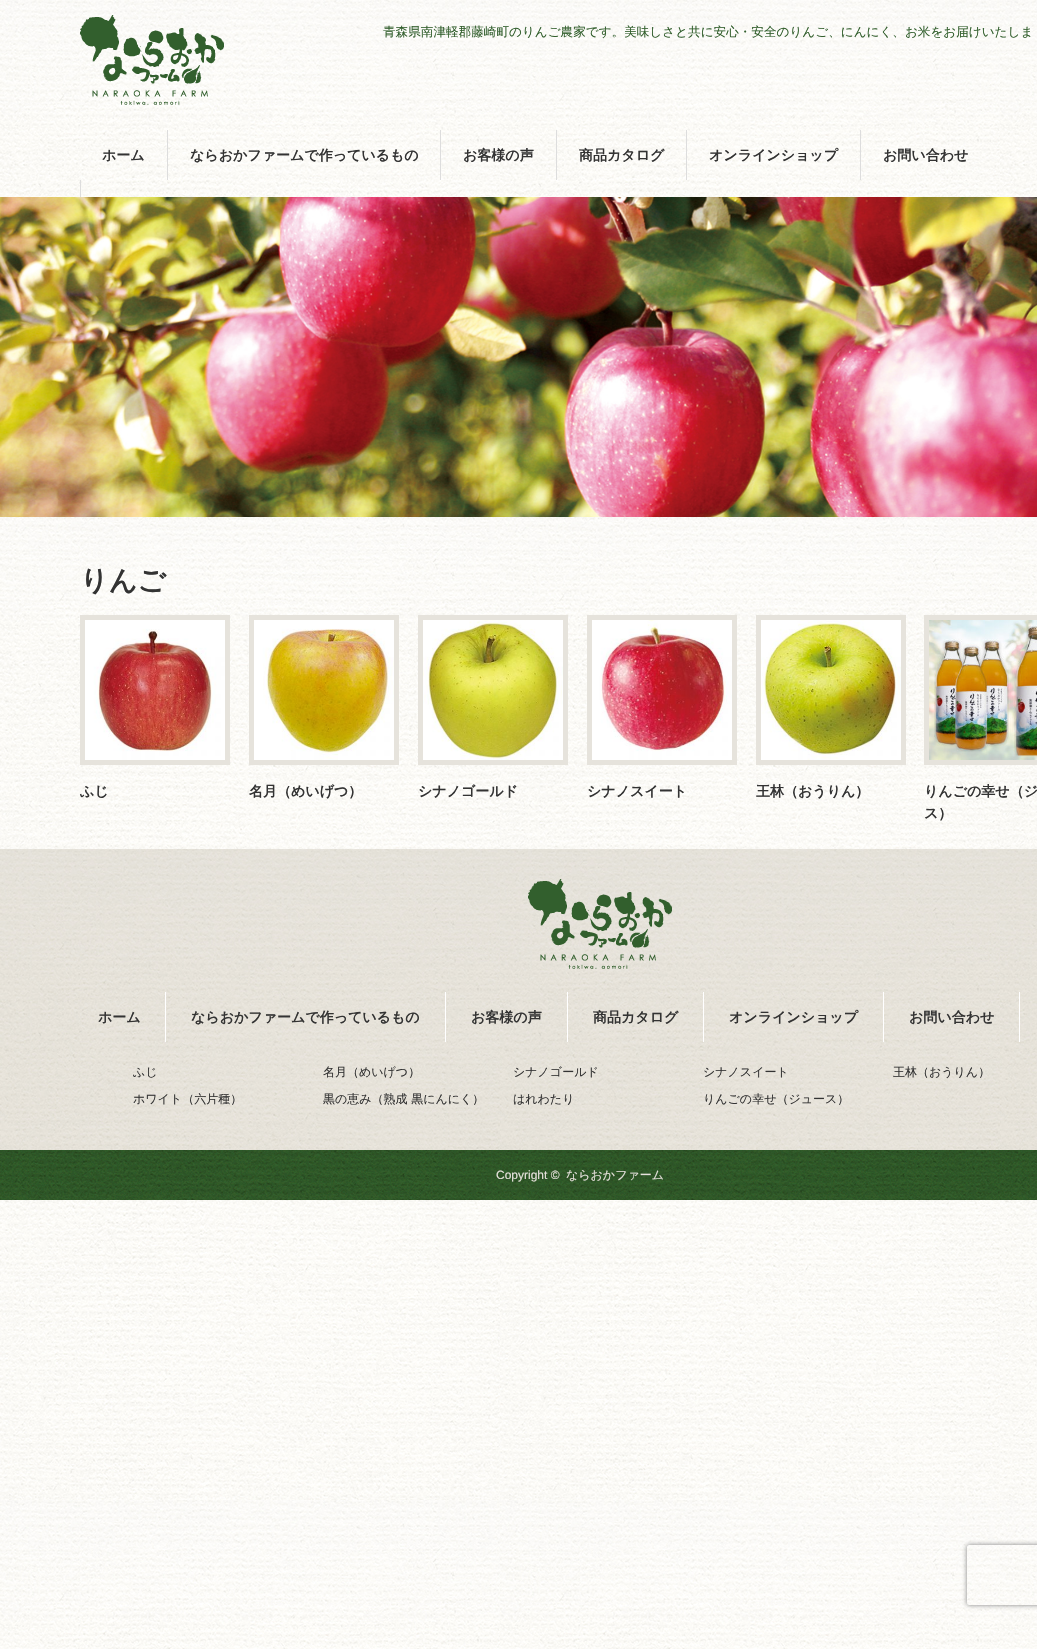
void draw(SkCanvas* canvas) {
  SkPaint paint;
  paint.setAntiAlias(true);
  auto face = [&](const char* family, int weight, float size, bool italic = false) {
    SkFontStyle style(weight, SkFontStyle::kNormal_Width,
      italic ? SkFontStyle::kItalic_Slant : SkFontStyle::kUpright_Slant);
    SkFont result(fontMgr->matchFamilyStyle(family, style), size);
    result.setSubpixel(true);
    return result;
  };
  auto paste = [&](const char* path, float x, float y, float w, float h) {
    auto image = SkImages::DeferredFromEncodedData(SkData::MakeFromFileName(path));
    canvas->drawImageRect(image, SkRect::MakeXYWH(x, y, w, h), SkSamplingOptions());
  };
  auto shape = [&](const char* data, bool evenOdd = false) {
    SkPath result = *SkParsePath::FromSVGString(data);
    if (evenOdd) result.setFillType(SkPathFillType::kEvenOdd);
    return result;
  };
  canvas->clear(0xffffffff);
  paste("img/1.png", 0, 0, 1037, 1649);
  paste("img/2.png", 80, 15, 144, 90);
  {
    const struct { float x, y, w, h; SkColor color; } items[] = {
      {167, 130, 1, 50, 0xffdddddd},
      {440, 130, 1, 50, 0xffdddddd},
      {556, 130, 1, 50, 0xffdddddd},
      {686, 130, 1, 50, 0xffdddddd},
      {860, 130, 1, 50, 0xffdddddd},
      {80, 180, 1, 17, 0xffdddddd},
    };
    for (auto [x, y, w, h, color] : items) {
      paint.setColor(color);
      canvas->drawRect(SkRect::MakeXYWH(x, y, w, h), paint);
    }
  }
  paste("img/3.png", 0, 197, 1037, 320);
  paint.setStroke(true);
  paint.setStrokeWidth(5);
  paint.setColor(0xffe6e3dc);
  canvas->drawRect(SkRect::MakeXYWH(82.5f, 617.5f, 145, 145), paint);
  paste("img/4.png", 85, 620, 140, 140);
  canvas->drawRect(SkRect::MakeXYWH(251.5f, 617.5f, 145, 145), paint);
  paste("img/5.png", 254, 620, 140, 140);
  canvas->drawRect(SkRect::MakeXYWH(420.5f, 617.5f, 145, 145), paint);
  paste("img/6.png", 423, 620, 140, 140);
  canvas->drawRect(SkRect::MakeXYWH(589.5f, 617.5f, 145, 145), paint);
  paste("img/7.png", 592, 620, 140, 140);
  canvas->drawRect(SkRect::MakeXYWH(758.5f, 617.5f, 145, 145), paint);
  paste("img/8.png", 761, 620, 140, 140);
  canvas->drawRect(SkRect::MakeXYWH(926.5f, 617.5f, 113, 145), paint);
  paste("img/9.png", 929, 620, 108, 140);
  paste("img/10.png", 0, 849, 1037, 301);
  paste("img/11.png", 528, 879, 144, 90);
  paint.setStroke(false);
  {
    const struct { float x, y, w, h; SkColor color; } items[] = {
      {165, 992, 1, 50, 0xffffffff},
      {445, 992, 1, 50, 0xffffffff},
      {567, 992, 1, 50, 0xffffffff},
      {703, 992, 1, 50, 0xffffffff},
      {883, 992, 1, 50, 0xffffffff},
      {1019, 992, 1, 50, 0xffffffff},
    };
    for (auto [x, y, w, h, color] : items) {
      paint.setColor(color);
      canvas->drawRect(SkRect::MakeXYWH(x, y, w, h), paint);
    }
  }
  paste("img/12.png", 0, 1150, 1037, 50);
  canvas->save();
  canvas->clipPath(shape("M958 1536H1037V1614H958ZM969 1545H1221C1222 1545 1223 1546 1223 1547V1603C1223 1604 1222 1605 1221 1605H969C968 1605 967 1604 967 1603V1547C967 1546 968 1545 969 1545Z", true), true);
  paint.setColor(0xff808080);
  paint.setMaskFilter(SkMaskFilter::MakeBlur(kNormal_SkBlurStyle, 2.5f));
  canvas->drawRoundRect(SkRect::MakeXYWH(967, 1545, 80, 60), 2, 2, paint);
  paint.setMaskFilter(nullptr);
  canvas->restore();
  auto f0 = face("WenQuanYi Zen Hei", 500, 12.6f);
  paint.setColor(0xff325f2d);
  canvas->drawString("青森県南津軽郡藤崎町のりんご農家です。美味しさと共に安心・安全のりんご、にんにく、お米をお届けいたしま", 383, 36, f0, paint);
  auto f1 = face("WenQuanYi Zen Hei", 700, 14);
  paint.setColor(0xff333333);
  {
    const struct { const char* s; float x, y; } items[] = {
      {"ホーム", 102, 160},
      {"ならおかファームで作っているもの", 190, 160},
      {"お客様の声", 463, 160},
      {"商品カタログ", 579, 160},
      {"オンラインショップ", 709, 160},
      {"お問い合わせ", 883, 160},
    };
    for (auto [s, x, y] : items) {
      canvas->drawString(s, x, y, f1, paint);
    }
  }
  auto f2 = face("WenQuanYi Zen Hei", 700, 28);
  canvas->drawString("りんご", 80, 590, f2, paint);
  {
    const struct { const char* s; float x, y; } items[] = {
      {"ふじ", 80, 796},
      {"名月（めいげつ）", 249, 796},
      {"シナノゴールド", 418, 796},
      {"シナノスイート", 587, 796},
      {"王林（おうりん）", 756, 796},
      {"りんごの幸せ（ジ", 924, 796},
      {"ス）", 924, 818},
      {"ホーム", 98, 1022},
      {"ならおかファームで作っているもの", 191, 1022},
      {"お客様の声", 471, 1022},
      {"商品カタログ", 593, 1022},
      {"オンラインショップ", 729, 1022},
      {"お問い合わせ", 909, 1022},
    };
    for (auto [s, x, y] : items) {
      canvas->drawString(s, x, y, f1, paint);
    }
  }
  auto f3 = face("WenQuanYi Zen Hei", 500, 12);
  {
    const struct { const char* s; float x, y; } items[] = {
      {"ふじ", 133, 1076},
      {"名月（めいげつ）", 323, 1076},
      {"シナノゴールド", 513, 1076},
      {"シナノスイート", 703, 1076},
      {"王林（おうりん）", 893, 1076},
      {"ホワイト（六片種）", 133, 1103},
      {"黒の恵み（熟成 黒にんにく）", 323, 1103},
      {"はれわたり", 513, 1103},
      {"りんごの幸せ（ジュース）", 703, 1103},
    };
    for (auto [s, x, y] : items) {
      canvas->drawString(s, x, y, f3, paint);
    }
  }
  auto f4 = face("Liberation Sans", 400, 12);
  paint.setColor(0xffe6e1dc);
  canvas->drawString("Copyright ©", 496, 1179, f4, paint);
  canvas->drawString("ならおかファーム", 566, 1179, f3, paint);
}
